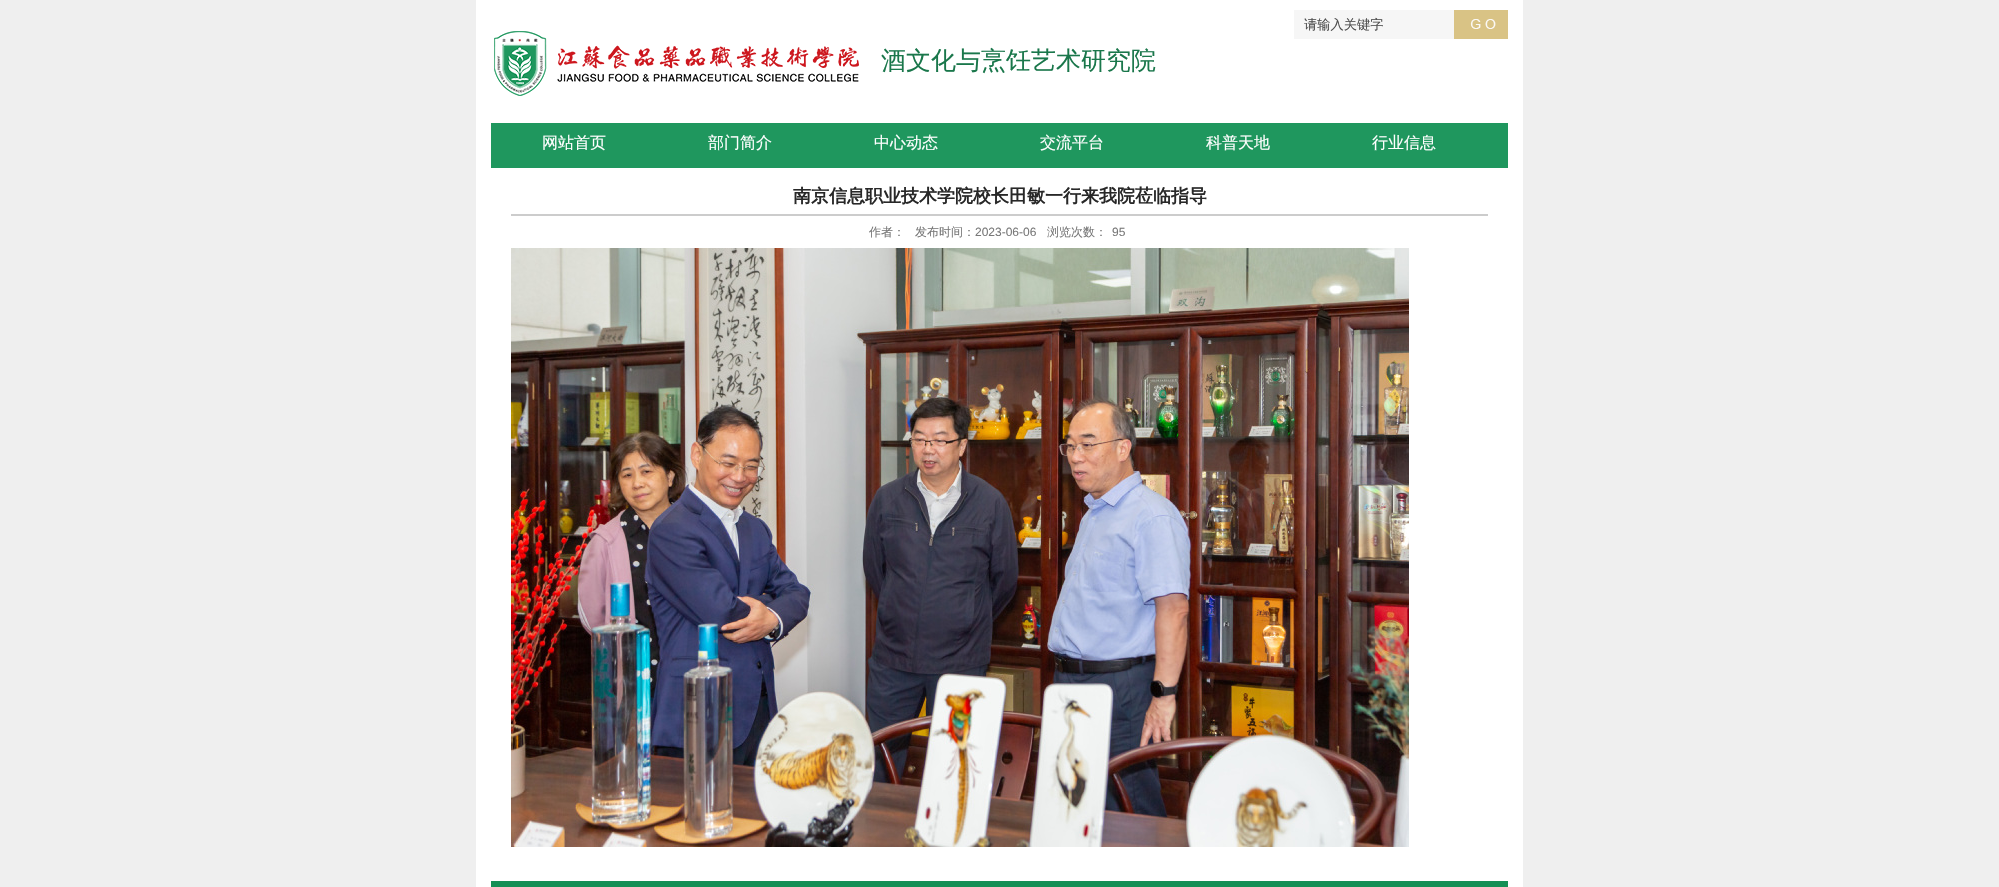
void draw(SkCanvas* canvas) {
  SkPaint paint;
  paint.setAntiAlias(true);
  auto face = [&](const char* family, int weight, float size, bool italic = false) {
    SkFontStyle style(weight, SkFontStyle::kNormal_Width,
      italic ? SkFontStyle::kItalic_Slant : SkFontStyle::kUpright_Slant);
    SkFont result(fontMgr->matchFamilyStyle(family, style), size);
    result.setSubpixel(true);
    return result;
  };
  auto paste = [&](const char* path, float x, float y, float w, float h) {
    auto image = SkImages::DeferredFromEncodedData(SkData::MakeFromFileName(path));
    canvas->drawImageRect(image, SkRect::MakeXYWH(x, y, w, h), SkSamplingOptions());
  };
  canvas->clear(0xffefefef);
  paint.setColor(0xffffffff);
  canvas->drawRect(SkRect::MakeXYWH(476, 0, 1047, 887), paint);
  paint.setColor(0xfff6f6f6);
  canvas->drawRect(SkRect::MakeXYWH(1294, 10, 160, 29), paint);
  paste("img/1.png", 1454, 10, 54, 29);
  paste("img/2.png", 494, 31, 365, 65);
  paint.setColor(0xff1f975e);
  canvas->drawRect(SkRect::MakeXYWH(491, 123, 1017, 45), paint);
  paint.setColor(0xffcccccc);
  canvas->drawRect(SkRect::MakeXYWH(511, 214, 977, 2), paint);
  paste("img/3.png", 511, 248, 898, 599);
  paint.setColor(0xff148f55);
  canvas->drawRect(SkRect::MakeXYWH(491, 881, 1017, 6), paint);
  auto f0 = face("WenQuanYi Zen Hei", 500, 13.25f);
  paint.setColor(0xff4e4e4e);
  canvas->drawString("请输入关键字", 1304, 29, f0, paint);
  auto f1 = face("WenQuanYi Zen Hei", 500, 25);
  paint.setColor(0xff1a774b);
  canvas->drawString("酒文化与烹饪艺术研究院", 881, 69, f1, paint);
  auto f2 = face("WenQuanYi Zen Hei", 500, 16);
  paint.setColor(0xffffffff);
  {
    const struct { const char* s; float x, y; } items[] = {
      {"网站首页", 542, 148},
      {"部门简介", 708, 148},
      {"中心动态", 874, 148},
      {"交流平台", 1040, 148},
      {"科普天地", 1206, 148},
      {"行业信息", 1372, 148},
    };
    for (auto [s, x, y] : items) {
      canvas->drawString(s, x, y, f2, paint);
    }
  }
  auto f3 = face("WenQuanYi Zen Hei", 700, 18);
  paint.setColor(0xff282828);
  canvas->drawString("南京信息职业技术学院校长田敏一行来我院莅临指导", 793, 202, f3, paint);
  auto f4 = face("WenQuanYi Zen Hei", 500, 12);
  paint.setColor(0xff787878);
  canvas->drawString("作者：", 869, 236, f4, paint);
  canvas->drawString("发布时间：", 915, 236, f4, paint);
  auto f5 = face("Liberation Sans", 400, 12);
  canvas->drawString("2023-06-06", 975, 236, f5, paint);
  canvas->drawString("浏览次数：", 1047, 236, f4, paint);
  canvas->drawString("95", 1112, 236, f5, paint);
}
